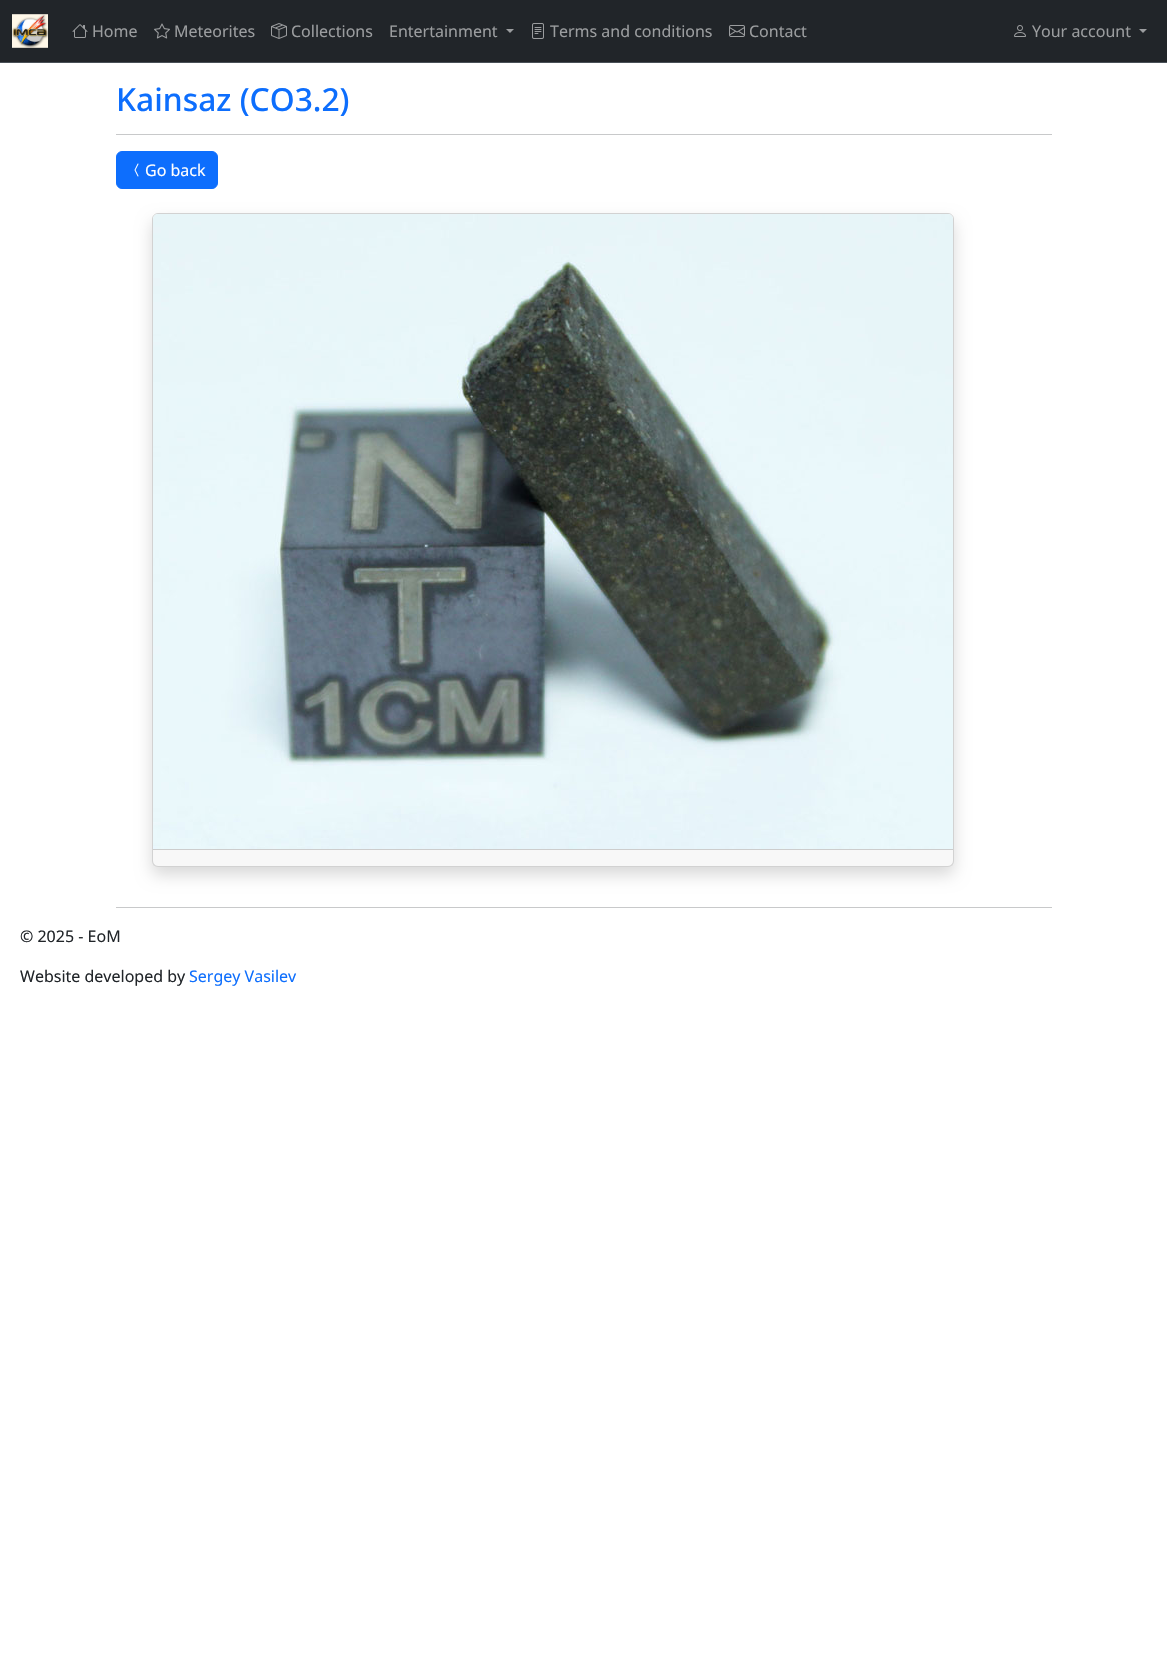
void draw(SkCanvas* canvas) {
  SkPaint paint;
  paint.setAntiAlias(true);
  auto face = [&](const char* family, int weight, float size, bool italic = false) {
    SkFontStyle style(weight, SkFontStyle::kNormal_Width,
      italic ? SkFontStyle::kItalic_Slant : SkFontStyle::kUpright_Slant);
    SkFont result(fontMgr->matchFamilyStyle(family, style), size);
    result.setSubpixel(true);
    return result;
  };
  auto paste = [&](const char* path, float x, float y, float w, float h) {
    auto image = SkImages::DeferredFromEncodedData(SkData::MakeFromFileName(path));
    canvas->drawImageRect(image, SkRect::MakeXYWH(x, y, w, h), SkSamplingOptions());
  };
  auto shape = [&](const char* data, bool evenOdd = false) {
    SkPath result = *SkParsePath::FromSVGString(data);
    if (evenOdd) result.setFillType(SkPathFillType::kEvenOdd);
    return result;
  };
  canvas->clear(0xffffffff);
  paint.setColor(0xff212529);
  canvas->drawRect(SkRect::MakeXYWH(0, 0, 1167, 62), paint);
  paint.setColor(0xff495057);
  canvas->drawRect(SkRect::MakeXYWH(0, 62, 1167, 1), paint);
  paste("img/1.png", 12, 14, 36, 34);
  paste("img/2.png", 72, 24, 16, 14);
  paste("img/3.png", 154, 23, 16, 16);
  paste("img/4.png", 271, 23, 16, 16);
  paint.setColor(0xff9b9d9f);
  canvas->drawPath(shape("M506 29H514L510 33Z"), paint);
  paste("img/5.png", 532, 23, 12, 16);
  paste("img/6.png", 729, 25, 16, 12);
  paste("img/7.png", 1014, 25, 12, 12);
  canvas->drawPath(shape("M1139 29H1147L1143 33Z"), paint);
  paint.setColor(0xffc8c9ca);
  canvas->drawRect(SkRect::MakeXYWH(116, 134, 936, 1), paint);
  paint.setColor(0xff0d6efd);
  canvas->drawRoundRect(SkRect::MakeXYWH(116.5f, 151.5f, 101, 37), 5.5f, 5.5f, paint);
  paint.setStroke(true);
  paint.setStrokeWidth(1);
  canvas->drawRoundRect(SkRect::MakeXYWH(116.5f, 151.5f, 101, 37), 5.5f, 5.5f, paint);
  paste("img/8.png", 134, 163, 5, 14);
  paint.setStroke(false);
  paint.setColor(0x26000000);
  paint.setMaskFilter(SkMaskFilter::MakeBlur(kNormal_SkBlurStyle, 8));
  canvas->drawRoundRect(SkRect::MakeXYWH(152, 221, 802, 654), 6, 6, paint);
  paint.setMaskFilter(nullptr);
  paint.setColor(0xffffffff);
  canvas->drawRoundRect(SkRect::MakeXYWH(152.5f, 213.5f, 801, 653), 5.5f, 5.5f, paint);
  paint.setStroke(true);
  paint.setColor(0xffd2d2d2);
  canvas->drawRoundRect(SkRect::MakeXYWH(152.5f, 213.5f, 801, 653), 5.5f, 5.5f, paint);
  paste("img/9.png", 153, 214, 800, 635);
  paint.setStroke(false);
  {
    const struct { float x, y, w, h; SkColor color; } items[] = {
      {153, 850, 800, 16, 0x08212529},
      {153, 849, 800, 1, 0xffcdcdcd},
      {116, 907, 936, 1, 0xffc8c9ca},
    };
    for (auto [x, y, w, h, color] : items) {
      paint.setColor(color);
      canvas->drawRect(SkRect::MakeXYWH(x, y, w, h), paint);
    }
  }
  auto f0 = face("Noto Sans", 400, 16);
  paint.setColor(0xff9b9d9f);
  {
    const struct { const char* s; float x, y; } items[] = {
      {"Home", 92, 37},
      {"Meteorites", 174, 37},
      {"Collections", 291, 37},
      {"Entertainment", 389, 37},
      {"Terms and conditions", 550, 37},
      {"Contact", 749, 37},
      {"Your account", 1032, 37},
    };
    for (auto [s, x, y] : items) {
      canvas->drawString(s, x, y, f0, paint);
    }
  }
  auto f1 = face("Noto Sans", 500, 31.75f);
  paint.setColor(0xff0d6efd);
  canvas->drawString("Kainsaz (CO3.2)", 116, 111, f1, paint);
  paint.setColor(0xffffffff);
  canvas->drawString("Go back", 145, 176, f0, paint);
  paint.setColor(0xff212529);
  canvas->drawString("© 2025 - EoM", 20, 942, f0, paint);
  canvas->drawString("Website developed by", 20, 982, f0, paint);
  paint.setColor(0xff0d6efd);
  canvas->drawString("Sergey Vasilev", 189, 982, f0, paint);
}
